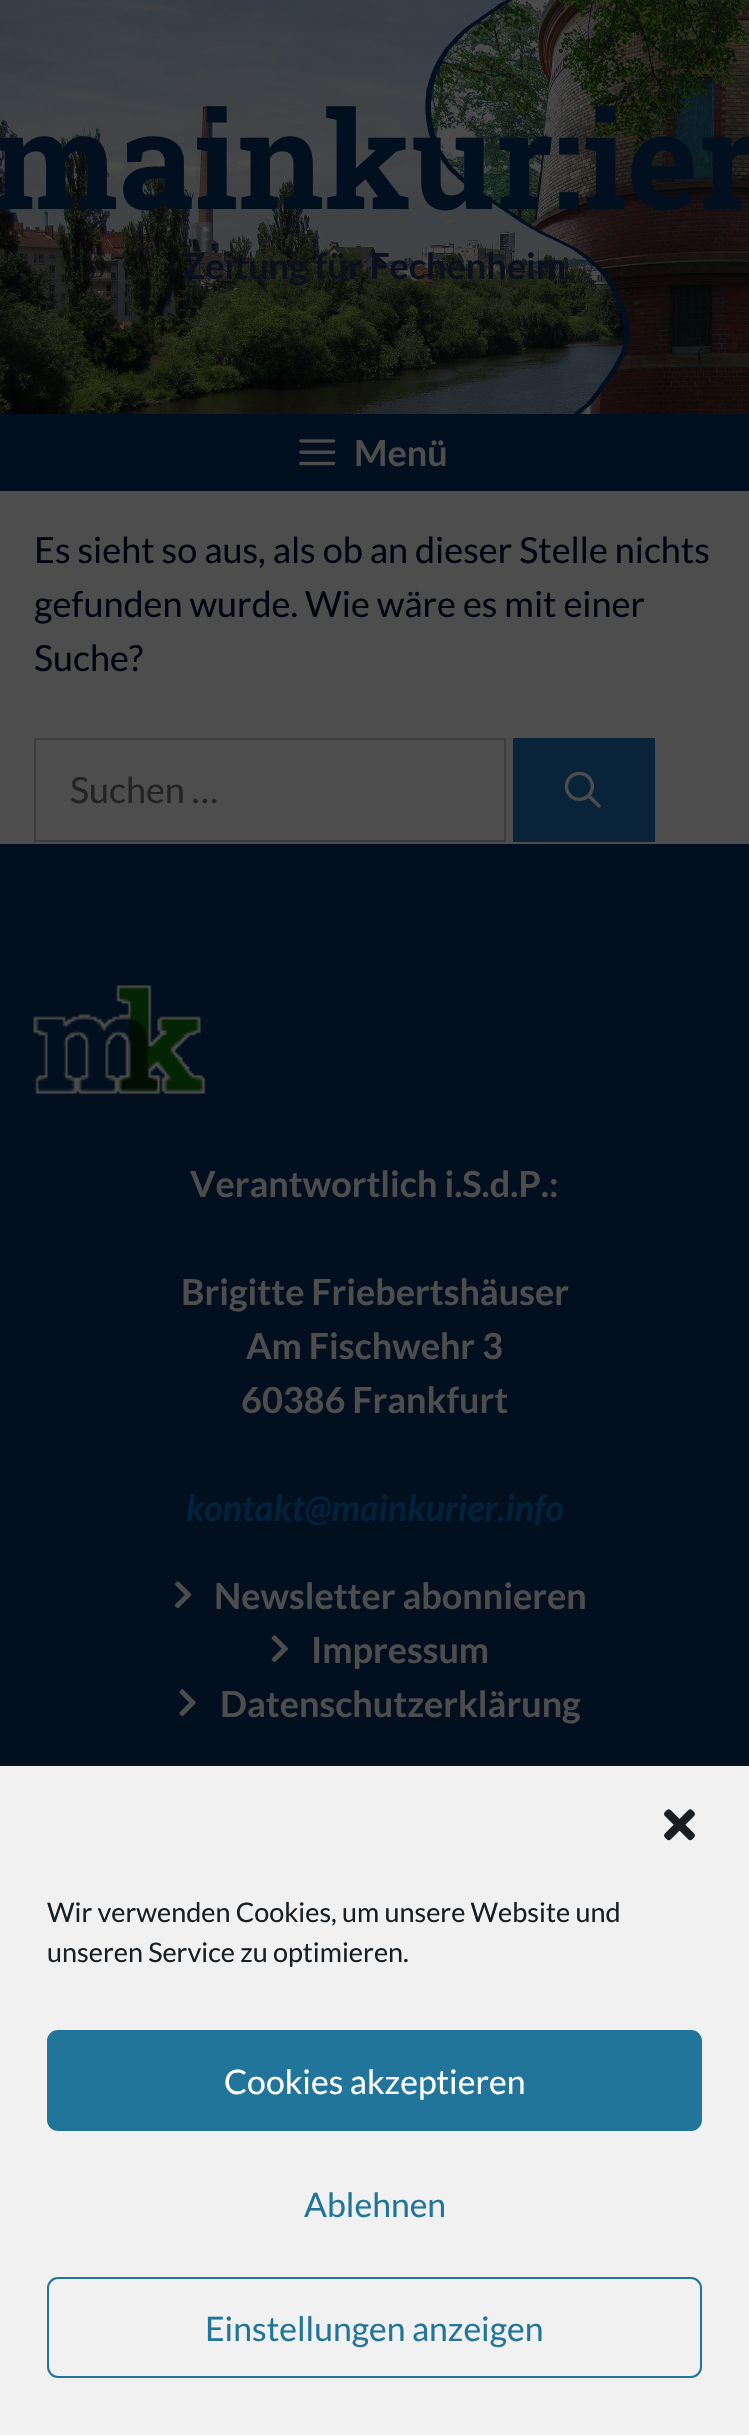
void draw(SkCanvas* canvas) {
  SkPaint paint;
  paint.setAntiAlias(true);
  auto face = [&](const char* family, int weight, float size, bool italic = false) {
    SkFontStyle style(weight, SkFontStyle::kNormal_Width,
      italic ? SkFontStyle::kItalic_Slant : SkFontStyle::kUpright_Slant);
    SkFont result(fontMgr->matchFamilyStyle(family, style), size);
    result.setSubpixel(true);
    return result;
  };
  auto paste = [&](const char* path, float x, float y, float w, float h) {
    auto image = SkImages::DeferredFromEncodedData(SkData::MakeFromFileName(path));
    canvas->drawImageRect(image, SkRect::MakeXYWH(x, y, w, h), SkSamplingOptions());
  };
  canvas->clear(0xff020f1e);
  paste("img/1.png", 0, 0, 749, 414);
  paste("img/2.png", 299, 439, 37, 27);
  paint.setColor(0xff4d4d4d);
  canvas->drawRect(SkRect::MakeXYWH(0, 491, 749, 353), paint);
  paint.setStroke(true);
  paint.setStrokeWidth(2);
  paint.setColor(0xff3d3d3d);
  canvas->drawRect(SkRect::MakeXYWH(35, 739, 470, 102), paint);
  paint.setStroke(false);
  paint.setColor(0xff092339);
  canvas->drawRect(SkRect::MakeXYWH(513, 738, 142, 104), paint);
  paste("img/3.png", 564, 771, 37, 37);
  paste("img/4.png", 33, 985, 173, 110);
  paste("img/5.png", 175, 1581, 17, 28);
  paste("img/6.png", 271, 1635, 17, 28);
  paste("img/7.png", 179, 1689, 17, 28);
  paint.setColor(0xfff1f1f1);
  canvas->drawRect(SkRect::MakeXYWH(0, 1766, 749, 669), paint);
  paste("img/8.png", 664, 1809, 31, 32);
  paint.setColor(0xff21759b);
  canvas->drawRoundRect(SkRect::MakeXYWH(48, 2031, 653, 99), 10, 10, paint);
  paint.setStroke(true);
  canvas->drawRoundRect(SkRect::MakeXYWH(48, 2031, 653, 99), 10, 10, paint);
  canvas->drawRoundRect(SkRect::MakeXYWH(48, 2278, 653, 99), 10, 10, paint);
  auto f0 = face("Roboto Slab", 700, 135);
  paint.setStroke(false);
  paint.setColor(0xff020f1e);
  canvas->drawString("mainkur:ier", -8, 209, f0, paint);
  auto f1 = face("Lato", 700, 36);
  paint.setColor(0xff0b101f);
  canvas->drawString("Zeitung für Fechenheim", 183, 279, f1, paint);
  paint.setColor(0xff4d4d4d);
  canvas->drawString("Menü", 354, 466, f1, paint);
  auto f2 = face("Lato", 400, 36);
  paint.setColor(0xff020411);
  {
    const struct { const char* s; float x, y; } items[] = {
      {"Es sieht so aus, als ob an dieser Stelle nichts", 34, 563},
      {"gefunden wurde. Wie wäre es mit einer", 34, 617},
      {"Suche?", 34, 671},
    };
    for (auto [s, x, y] : items) {
      canvas->drawString(s, x, y, f2, paint);
    }
  }
  paint.setColor(0xff232323);
  canvas->drawString("Suchen …", 70, 803, f2, paint);
  paint.setColor(0xff4d4d4d);
  {
    const struct { const char* s; float x, y; } items[] = {
      {"Verantwortlich i.S.d.P.:", 190, 1197},
      {"Brigitte Friebertshäuser", 181, 1305},
      {"Am Fischwehr 3", 246, 1359},
      {"60386 Frankfurt", 241, 1413},
    };
    for (auto [s, x, y] : items) {
      canvas->drawString(s, x, y, f1, paint);
    }
  }
  auto f3 = face("Lato", 700, 36, true);
  paint.setColor(0xff00223a);
  canvas->drawString("kontakt@mainkurier.info", 186, 1521, f3, paint);
  paint.setColor(0xff4d4d4d);
  {
    const struct { const char* s; float x, y; } items[] = {
      {"Newsletter abonnieren", 214, 1609},
      {"Impressum", 311, 1663},
      {"Datenschutzerklärung", 220, 1717},
    };
    for (auto [s, x, y] : items) {
      canvas->drawString(s, x, y, f1, paint);
    }
  }
  auto f4 = face("Lato", 400, 27);
  paint.setColor(0xff191e23);
  canvas->drawString("Wir verwenden Cookies, um unsere Website und", 47, 1922, f4, paint);
  canvas->drawString("unseren Service zu optimieren.", 47, 1962, f4, paint);
  auto f5 = face("Lato", 400, 33.75f);
  paint.setColor(0xffffffff);
  canvas->drawString("Cookies akzeptieren", 224, 2094, f5, paint);
  paint.setColor(0xff21759b);
  canvas->drawString("Ablehnen", 304, 2217, f5, paint);
  canvas->drawString("Einstellungen anzeigen", 205, 2341, f5, paint);
}
